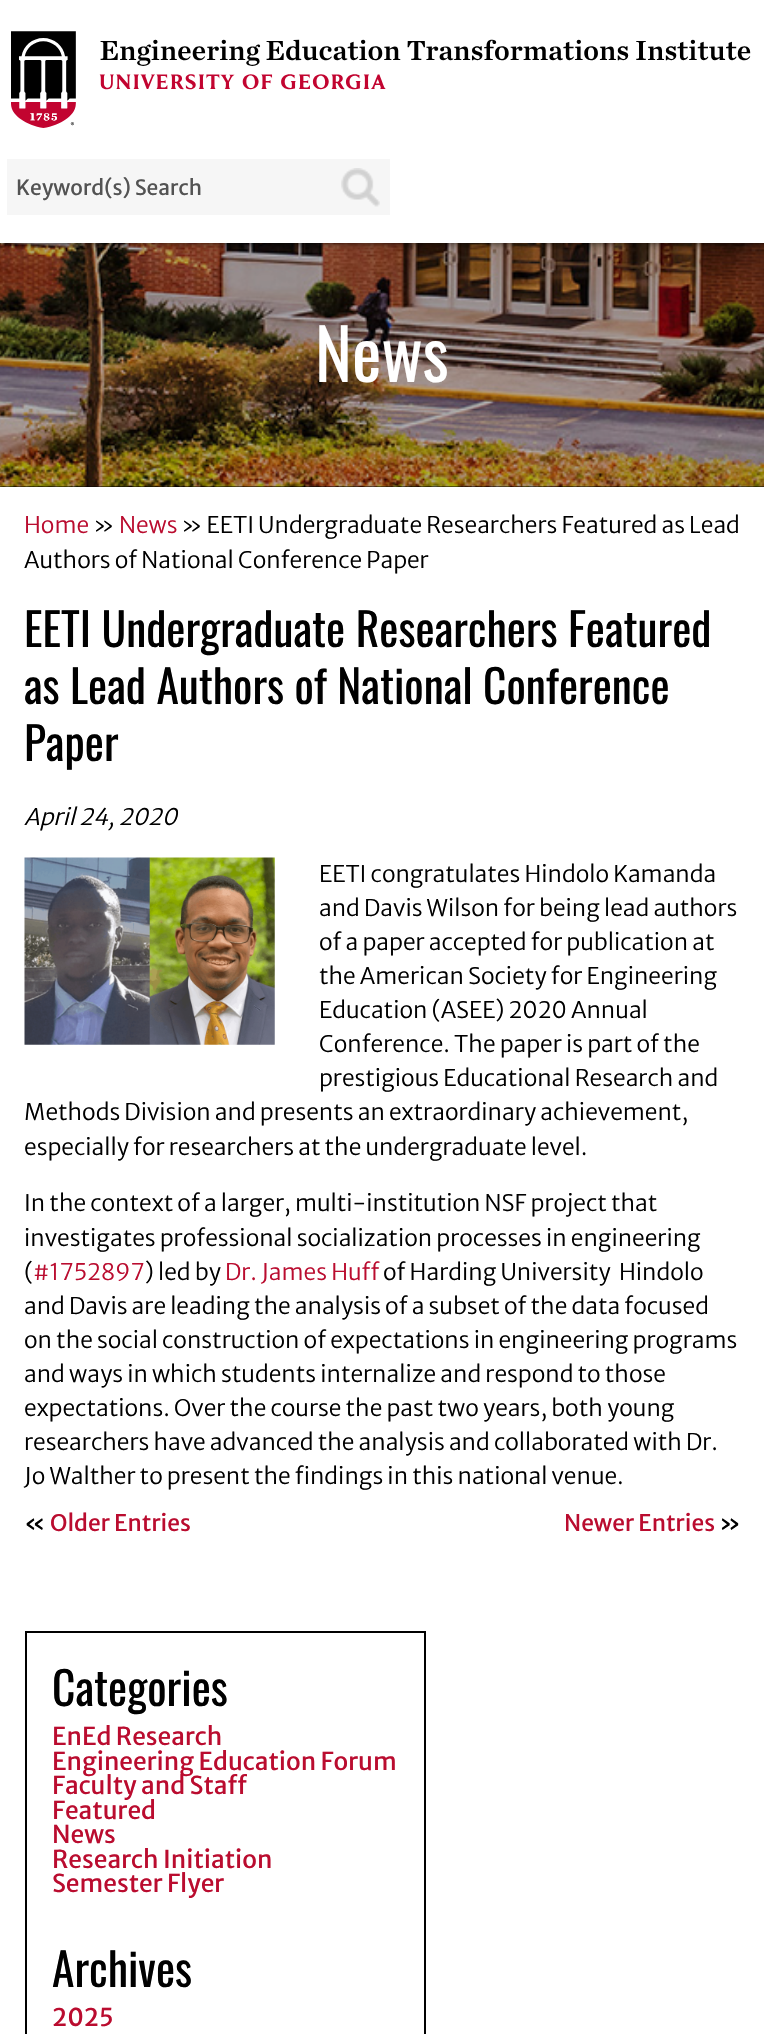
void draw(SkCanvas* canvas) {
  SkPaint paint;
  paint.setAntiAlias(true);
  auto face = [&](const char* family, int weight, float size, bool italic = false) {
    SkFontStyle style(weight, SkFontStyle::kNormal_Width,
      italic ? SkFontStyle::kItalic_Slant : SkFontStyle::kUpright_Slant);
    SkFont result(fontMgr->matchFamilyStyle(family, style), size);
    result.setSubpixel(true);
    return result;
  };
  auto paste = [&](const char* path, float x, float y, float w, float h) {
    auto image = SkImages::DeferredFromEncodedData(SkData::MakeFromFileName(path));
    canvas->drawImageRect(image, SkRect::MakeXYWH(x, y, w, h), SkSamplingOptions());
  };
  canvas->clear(0xffffffff);
  paint.setColor(0xff000000);
  canvas->drawRect(SkRect::MakeXYWH(0, 486, 764, 1), paint);
  paste("img/3.png", 0, 243, 764, 244);
  paint.setColor(0xb3000000);
  paint.setMaskFilter(SkMaskFilter::MakeBlur(kNormal_SkBlurStyle, 3.5f));
  canvas->drawRect(SkRect::MakeXYWH(0, 0, 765, 243), paint);
  paint.setMaskFilter(nullptr);
  paint.setColor(0xffffffff);
  canvas->drawRect(SkRect::MakeXYWH(0, 0, 764, 243), paint);
  paste("img/1.png", 11, 31, 740, 97);
  paint.setColor(0xfff6f6f6);
  canvas->drawRect(SkRect::MakeXYWH(7, 159, 383, 56), paint);
  paste("img/2.png", 341, 168, 39, 39);
  paste("img/4.png", 24, 857, 251, 188);
  {
    const struct { float x, y, w, h; SkColor color; } items[] = {
      {25, 1631, 400, 2, 0xff000000},
      {424, 1631, 2, 403, 0xff000000},
      {25, 1631, 2, 403, 0xff000000},
    };
    for (auto [x, y, w, h, color] : items) {
      paint.setColor(color);
      canvas->drawRect(SkRect::MakeXYWH(x, y, w, h), paint);
    }
  }
  auto f0 = face("Merriweather Sans", 400, 21);
  paint.setColor(0xff535353);
  canvas->drawString("Keyword(s) Search", 16, 195, f0, paint);
  auto f1 = face("Oswald", 400, 70);
  paint.setColor(0xffffffff);
  canvas->drawString("News", 315, 382, f1, paint);
  auto f2 = face("Merriweather Sans", 300, 22.75f);
  paint.setColor(0xffba0c2f);
  canvas->drawString("Home", 24, 533, f2, paint);
  paint.setColor(0xff000000);
  canvas->drawString("»", 93, 533, f2, paint);
  paint.setColor(0xffba0c2f);
  canvas->drawString("News", 119, 533, f2, paint);
  paint.setColor(0xff000000);
  canvas->drawString("» EETI Undergraduate Researchers Featured as Lead", 181, 533, f2, paint);
  canvas->drawString("Authors of National Conference Paper", 24, 568, f2, paint);
  auto f3 = face("Oswald", 400, 45.5f);
  {
    const struct { const char* s; float x, y; } items[] = {
      {"EETI Undergraduate Researchers Featured", 24, 647},
      {"as Lead Authors of National Conference", 24, 704},
      {"Paper", 24, 761},
    };
    for (auto [s, x, y] : items) {
      canvas->drawString(s, x, y, f3, paint);
    }
  }
  auto f4 = face("Merriweather Sans", 300, 22.75f, true);
  canvas->drawString("April 24, 2020", 24, 825, f4, paint);
  {
    const struct { const char* s; float x, y; } items[] = {
      {"EETI congratulates Hindolo Kamanda", 319, 882},
      {"and Davis Wilson for being lead authors", 319, 916},
      {"of a paper accepted for publication at", 319, 950},
      {"the American Society for Engineering", 319, 984},
      {"Education (ASEE) 2020 Annual", 319, 1018},
      {"Conference. The paper is part of the", 319, 1052},
      {"prestigious Educational Research and", 319, 1086},
      {"Methods Division and presents an extraordinary achievement,", 24, 1120},
      {"especially for researchers at the undergraduate level.", 24, 1155},
      {"In the context of a larger, multi-institution NSF project that", 24, 1211},
      {"investigates professional socialization processes in engineering", 24, 1246},
      {"(", 24, 1280},
    };
    for (auto [s, x, y] : items) {
      canvas->drawString(s, x, y, f2, paint);
    }
  }
  paint.setColor(0xffba0c2f);
  canvas->drawString("#1752897", 33, 1280, f2, paint);
  paint.setColor(0xff000000);
  canvas->drawString(") led by", 145, 1280, f2, paint);
  paint.setColor(0xffba0c2f);
  canvas->drawString("Dr. James Huff", 225, 1280, f2, paint);
  paint.setColor(0xff000000);
  {
    const struct { const char* s; float x, y; } items[] = {
      {"of Harding University", 383, 1280},
      {"Hindolo", 619, 1280},
      {"and Davis are leading the analysis of a subset of the data focused", 24, 1314},
      {"on the social construction of expectations in engineering programs", 24, 1348},
      {"and ways in which students internalize and respond to those", 24, 1382},
      {"expectations. Over the course the past two years, both young", 24, 1416},
      {"researchers have advanced the analysis and collaborated with Dr.", 24, 1450},
      {"Jo Walther to present the findings in this national venue.", 24, 1484},
    };
    for (auto [s, x, y] : items) {
      canvas->drawString(s, x, y, f2, paint);
    }
  }
  auto f5 = face("Merriweather Sans", 400, 22.75f);
  canvas->drawString("«", 24, 1531, f5, paint);
  paint.setColor(0xffba0c2f);
  canvas->drawString("Older Entries", 50, 1531, f5, paint);
  canvas->drawString("Newer Entries", 564, 1531, f5, paint);
  paint.setColor(0xff000000);
  canvas->drawString("»", 719, 1531, f5, paint);
  canvas->drawString("Categories", 52, 1706, f3, paint);
  auto f6 = face("Merriweather Sans", 400, 24.5f);
  paint.setColor(0xffba0c2f);
  {
    const struct { const char* s; float x, y; } items[] = {
      {"EnEd Research", 52, 1745},
      {"Engineering Education Forum", 52, 1770},
      {"Faculty and Staff", 52, 1794},
      {"Featured", 52, 1819},
      {"News", 52, 1843},
      {"Research Initiation", 52, 1868},
      {"Semester Flyer", 52, 1892},
    };
    for (auto [s, x, y] : items) {
      canvas->drawString(s, x, y, f6, paint);
    }
  }
  paint.setColor(0xff000000);
  canvas->drawString("Archives", 52, 1987, f3, paint);
  paint.setColor(0xffba0c2f);
  canvas->drawString("2025", 52, 2026, f6, paint);
}
